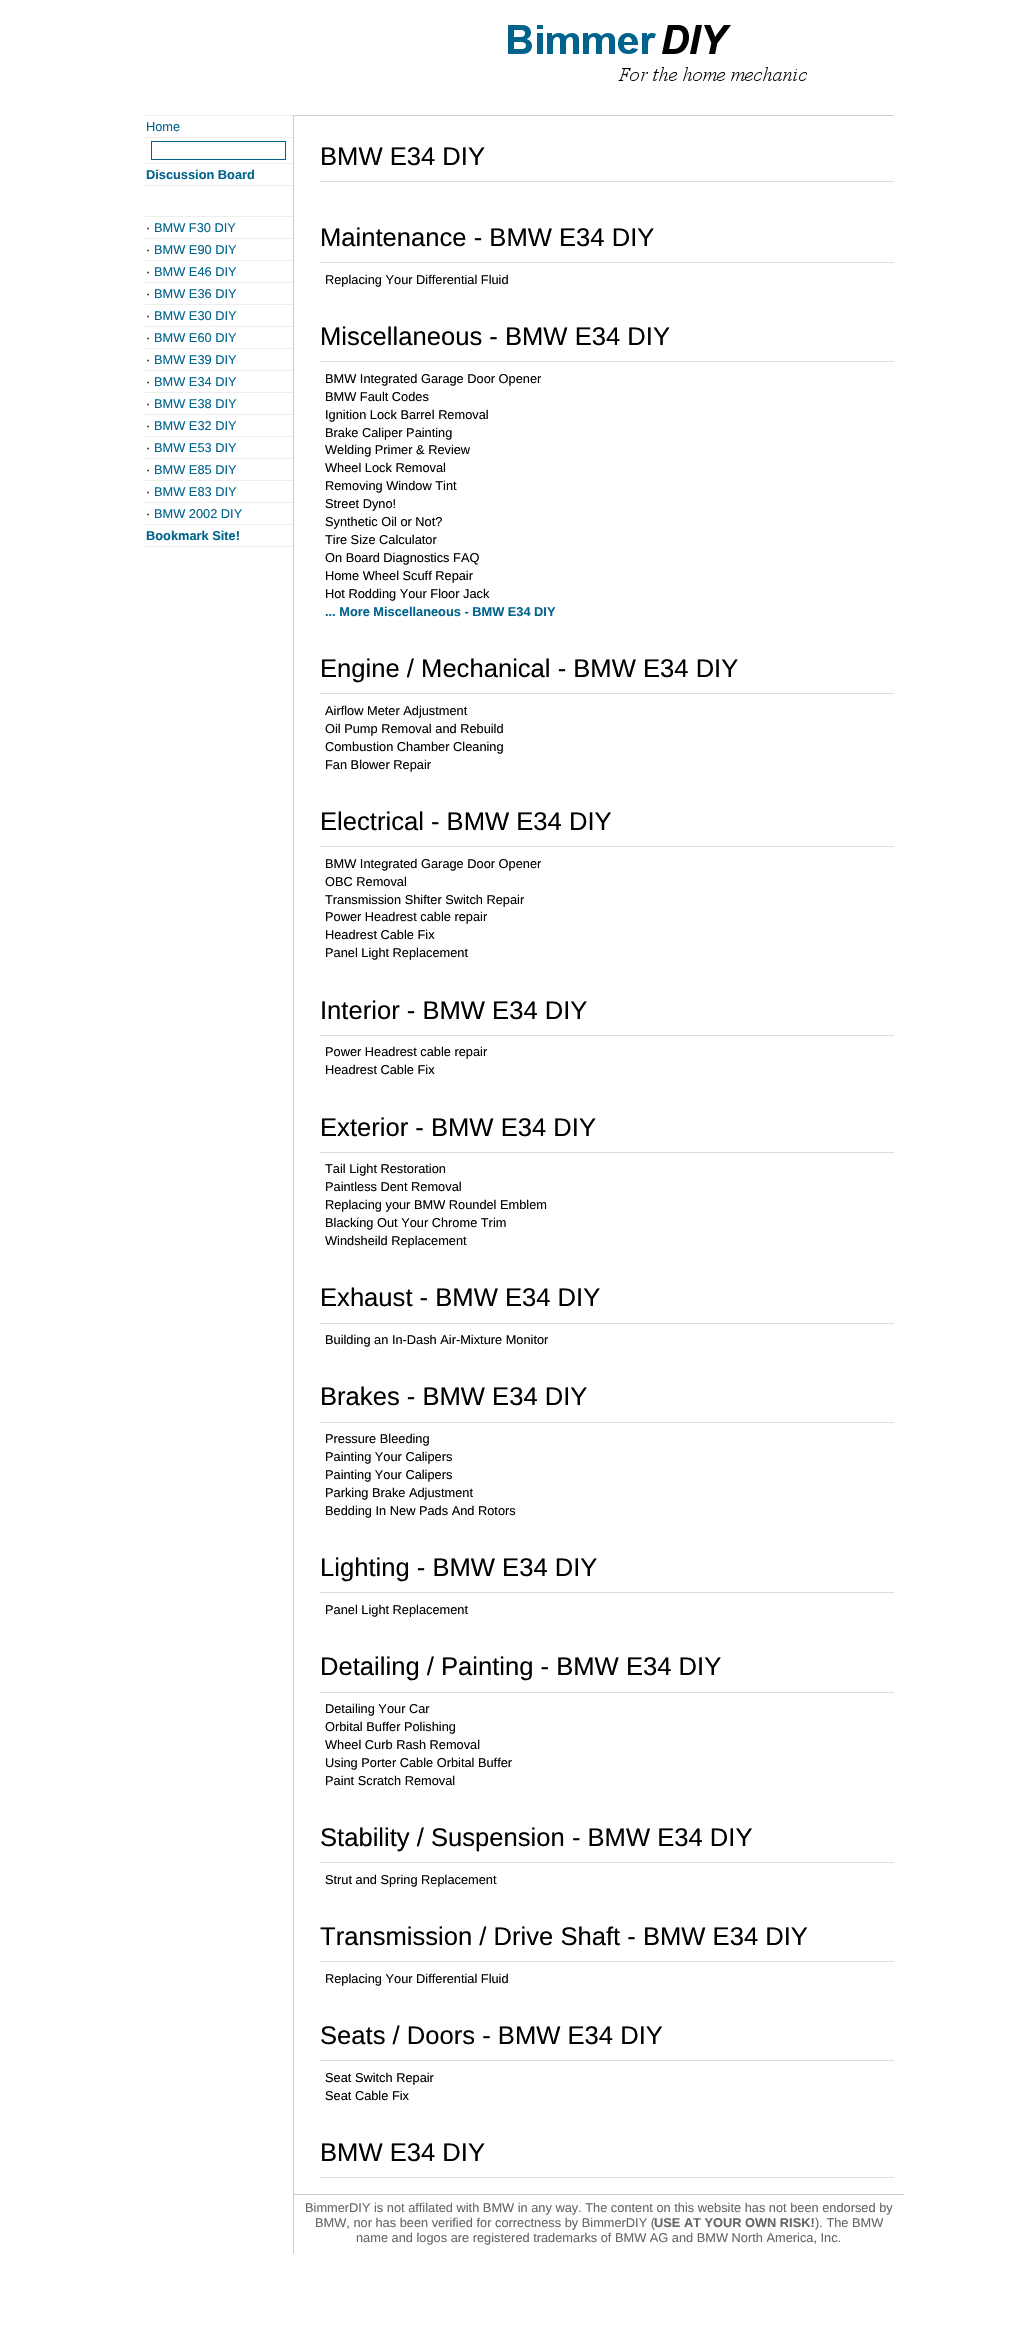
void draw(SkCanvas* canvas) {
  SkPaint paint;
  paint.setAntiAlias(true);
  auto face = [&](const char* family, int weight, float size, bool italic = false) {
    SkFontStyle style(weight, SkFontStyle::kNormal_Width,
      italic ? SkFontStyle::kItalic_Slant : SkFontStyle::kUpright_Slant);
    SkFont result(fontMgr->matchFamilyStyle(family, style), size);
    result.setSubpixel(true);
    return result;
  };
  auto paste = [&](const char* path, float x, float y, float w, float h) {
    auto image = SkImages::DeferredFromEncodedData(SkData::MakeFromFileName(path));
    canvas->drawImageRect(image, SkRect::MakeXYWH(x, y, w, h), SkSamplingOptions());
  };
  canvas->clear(0xffffffff);
  paste("img/1.png", 508, 25, 299, 56);
  {
    const struct { float x, y, w, h; SkColor color; } items[] = {
      {143, 115, 150, 432, 0xffeeeeee},
      {143, 116, 150, 21, 0xffffffff},
      {143, 138, 150, 25, 0xffffffff},
    };
    for (auto [x, y, w, h, color] : items) {
      paint.setColor(color);
      canvas->drawRect(SkRect::MakeXYWH(x, y, w, h), paint);
    }
  }
  paint.setStroke(true);
  paint.setStrokeWidth(1);
  paint.setColor(0xff00638c);
  canvas->drawRect(SkRect::MakeXYWH(151.5f, 141.5f, 134, 18), paint);
  paint.setStroke(false);
  {
    const struct { float x, y, w, h; SkColor color; } items[] = {
      {143, 164, 150, 21, 0xffffffff},
      {143, 186, 150, 30, 0xffffffff},
      {143, 217, 150, 21, 0xffffffff},
      {143, 239, 150, 21, 0xffffffff},
      {143, 261, 150, 21, 0xffffffff},
      {143, 283, 150, 21, 0xffffffff},
      {143, 305, 150, 21, 0xffffffff},
      {143, 327, 150, 21, 0xffffffff},
      {143, 349, 150, 21, 0xffffffff},
      {143, 371, 150, 21, 0xffffffff},
      {143, 393, 150, 21, 0xffffffff},
      {143, 415, 150, 21, 0xffffffff},
      {143, 437, 150, 21, 0xffffffff},
      {143, 459, 150, 21, 0xffffffff},
      {143, 481, 150, 21, 0xffffffff},
      {143, 503, 150, 21, 0xffffffff},
      {143, 525, 150, 21, 0xffffffff},
      {293, 115, 601, 1, 0xffcccccc},
      {293, 115, 1, 2139, 0xffcccccc},
      {320, 181, 574, 1, 0xffdddddd},
      {320, 262, 574, 1, 0xffdddddd},
      {320, 361, 574, 1, 0xffdddddd},
      {320, 693, 574, 1, 0xffdddddd},
      {320, 846, 574, 1, 0xffdddddd},
      {320, 1035, 574, 1, 0xffdddddd},
      {320, 1152, 574, 1, 0xffdddddd},
      {320, 1323, 574, 1, 0xffdddddd},
      {320, 1422, 574, 1, 0xffdddddd},
      {320, 1592, 574, 1, 0xffdddddd},
      {320, 1692, 574, 1, 0xffdddddd},
      {320, 1862, 574, 1, 0xffdddddd},
      {320, 1961, 574, 1, 0xffdddddd},
      {320, 2060, 574, 1, 0xffdddddd},
      {320, 2177, 574, 1, 0xffdddddd},
      {294, 2194, 610, 1, 0xffcccccc},
    };
    for (auto [x, y, w, h, color] : items) {
      paint.setColor(color);
      canvas->drawRect(SkRect::MakeXYWH(x, y, w, h), paint);
    }
  }
  auto f0 = face("Liberation Sans", 400, 12.8f);
  paint.setColor(0xff00638c);
  canvas->drawString("Home", 146, 131, f0, paint);
  auto f1 = face("Liberation Sans", 700, 12.8f);
  canvas->drawString("Discussion Board", 146, 179, f1, paint);
  paint.setColor(0xff000000);
  canvas->drawString("·", 146, 232, f0, paint);
  paint.setColor(0xff00638c);
  canvas->drawString("BMW F30 DIY", 154, 232, f0, paint);
  paint.setColor(0xff000000);
  canvas->drawString("·", 146, 254, f0, paint);
  paint.setColor(0xff00638c);
  canvas->drawString("BMW E90 DIY", 154, 254, f0, paint);
  paint.setColor(0xff000000);
  canvas->drawString("·", 146, 276, f0, paint);
  paint.setColor(0xff00638c);
  canvas->drawString("BMW E46 DIY", 154, 276, f0, paint);
  paint.setColor(0xff000000);
  canvas->drawString("·", 146, 298, f0, paint);
  paint.setColor(0xff00638c);
  canvas->drawString("BMW E36 DIY", 154, 298, f0, paint);
  paint.setColor(0xff000000);
  canvas->drawString("·", 146, 320, f0, paint);
  paint.setColor(0xff00638c);
  canvas->drawString("BMW E30 DIY", 154, 320, f0, paint);
  paint.setColor(0xff000000);
  canvas->drawString("·", 146, 342, f0, paint);
  paint.setColor(0xff00638c);
  canvas->drawString("BMW E60 DIY", 154, 342, f0, paint);
  paint.setColor(0xff000000);
  canvas->drawString("·", 146, 364, f0, paint);
  paint.setColor(0xff00638c);
  canvas->drawString("BMW E39 DIY", 154, 364, f0, paint);
  paint.setColor(0xff000000);
  canvas->drawString("·", 146, 386, f0, paint);
  paint.setColor(0xff00638c);
  canvas->drawString("BMW E34 DIY", 154, 386, f0, paint);
  paint.setColor(0xff000000);
  canvas->drawString("·", 146, 408, f0, paint);
  paint.setColor(0xff00638c);
  canvas->drawString("BMW E38 DIY", 154, 408, f0, paint);
  paint.setColor(0xff000000);
  canvas->drawString("·", 146, 430, f0, paint);
  paint.setColor(0xff00638c);
  canvas->drawString("BMW E32 DIY", 154, 430, f0, paint);
  paint.setColor(0xff000000);
  canvas->drawString("·", 146, 452, f0, paint);
  paint.setColor(0xff00638c);
  canvas->drawString("BMW E53 DIY", 154, 452, f0, paint);
  paint.setColor(0xff000000);
  canvas->drawString("·", 146, 474, f0, paint);
  paint.setColor(0xff00638c);
  canvas->drawString("BMW E85 DIY", 154, 474, f0, paint);
  paint.setColor(0xff000000);
  canvas->drawString("·", 146, 496, f0, paint);
  paint.setColor(0xff00638c);
  canvas->drawString("BMW E83 DIY", 154, 496, f0, paint);
  paint.setColor(0xff000000);
  canvas->drawString("·", 146, 518, f0, paint);
  paint.setColor(0xff00638c);
  canvas->drawString("BMW 2002 DIY", 154, 518, f0, paint);
  canvas->drawString("Bookmark Site!", 146, 540, f1, paint);
  auto f2 = face("Liberation Sans", 400, 25.6f);
  paint.setColor(0xff000000);
  canvas->drawString("BMW E34 DIY", 320, 165, f2, paint);
  canvas->drawString("Maintenance - BMW E34 DIY", 320, 246, f2, paint);
  canvas->drawString("Replacing Your Differential Fluid", 325, 284, f0, paint);
  canvas->drawString("Miscellaneous - BMW E34 DIY", 320, 345, f2, paint);
  {
    const struct { const char* s; float x, y; } items[] = {
      {"BMW Integrated Garage Door Opener", 325, 383},
      {"BMW Fault Codes", 325, 401},
      {"Ignition Lock Barrel Removal", 325, 419},
      {"Brake Caliper Painting", 325, 437},
      {"Welding Primer & Review", 325, 454},
      {"Wheel Lock Removal", 325, 472},
      {"Removing Window Tint", 325, 490},
      {"Street Dyno!", 325, 508},
      {"Synthetic Oil or Not?", 325, 526},
      {"Tire Size Calculator", 325, 544},
      {"On Board Diagnostics FAQ", 325, 562},
      {"Home Wheel Scuff Repair", 325, 580},
      {"Hot Rodding Your Floor Jack", 325, 598},
    };
    for (auto [s, x, y] : items) {
      canvas->drawString(s, x, y, f0, paint);
    }
  }
  paint.setColor(0xff00638c);
  canvas->drawString("... More Miscellaneous - BMW E34 DIY", 325, 616, f1, paint);
  paint.setColor(0xff000000);
  canvas->drawString("Engine / Mechanical - BMW E34 DIY", 320, 677, f2, paint);
  {
    const struct { const char* s; float x, y; } items[] = {
      {"Airflow Meter Adjustment", 325, 715},
      {"Oil Pump Removal and Rebuild", 325, 733},
      {"Combustion Chamber Cleaning", 325, 751},
      {"Fan Blower Repair", 325, 769},
    };
    for (auto [s, x, y] : items) {
      canvas->drawString(s, x, y, f0, paint);
    }
  }
  canvas->drawString("Electrical - BMW E34 DIY", 320, 830, f2, paint);
  {
    const struct { const char* s; float x, y; } items[] = {
      {"BMW Integrated Garage Door Opener", 325, 868},
      {"OBC Removal", 325, 886},
      {"Transmission Shifter Switch Repair", 325, 904},
      {"Power Headrest cable repair", 325, 921},
      {"Headrest Cable Fix", 325, 939},
      {"Panel Light Replacement", 325, 957},
    };
    for (auto [s, x, y] : items) {
      canvas->drawString(s, x, y, f0, paint);
    }
  }
  canvas->drawString("Interior - BMW E34 DIY", 320, 1019, f2, paint);
  canvas->drawString("Power Headrest cable repair", 325, 1056, f0, paint);
  canvas->drawString("Headrest Cable Fix", 325, 1074, f0, paint);
  canvas->drawString("Exterior - BMW E34 DIY", 320, 1136, f2, paint);
  {
    const struct { const char* s; float x, y; } items[] = {
      {"Tail Light Restoration", 325, 1173},
      {"Paintless Dent Removal", 325, 1191},
      {"Replacing your BMW Roundel Emblem", 325, 1209},
      {"Blacking Out Your Chrome Trim", 325, 1227},
      {"Windsheild Replacement", 325, 1245},
    };
    for (auto [s, x, y] : items) {
      canvas->drawString(s, x, y, f0, paint);
    }
  }
  canvas->drawString("Exhaust - BMW E34 DIY", 320, 1306, f2, paint);
  canvas->drawString("Building an In-Dash Air-Mixture Monitor", 325, 1344, f0, paint);
  canvas->drawString("Brakes - BMW E34 DIY", 320, 1405, f2, paint);
  {
    const struct { const char* s; float x, y; } items[] = {
      {"Pressure Bleeding", 325, 1443},
      {"Painting Your Calipers", 325, 1461},
      {"Painting Your Calipers", 325, 1479},
      {"Parking Brake Adjustment", 325, 1497},
      {"Bedding In New Pads And Rotors", 325, 1515},
    };
    for (auto [s, x, y] : items) {
      canvas->drawString(s, x, y, f0, paint);
    }
  }
  canvas->drawString("Lighting - BMW E34 DIY", 320, 1576, f2, paint);
  canvas->drawString("Panel Light Replacement", 325, 1614, f0, paint);
  canvas->drawString("Detailing / Painting - BMW E34 DIY", 320, 1675, f2, paint);
  {
    const struct { const char* s; float x, y; } items[] = {
      {"Detailing Your Car", 325, 1713},
      {"Orbital Buffer Polishing", 325, 1731},
      {"Wheel Curb Rash Removal", 325, 1749},
      {"Using Porter Cable Orbital Buffer", 325, 1767},
      {"Paint Scratch Removal", 325, 1785},
    };
    for (auto [s, x, y] : items) {
      canvas->drawString(s, x, y, f0, paint);
    }
  }
  canvas->drawString("Stability / Suspension - BMW E34 DIY", 320, 1846, f2, paint);
  canvas->drawString("Strut and Spring Replacement", 325, 1884, f0, paint);
  canvas->drawString("Transmission / Drive Shaft - BMW E34 DIY", 320, 1945, f2, paint);
  canvas->drawString("Replacing Your Differential Fluid", 325, 1983, f0, paint);
  canvas->drawString("Seats / Doors - BMW E34 DIY", 320, 2044, f2, paint);
  canvas->drawString("Seat Switch Repair", 325, 2082, f0, paint);
  canvas->drawString("Seat Cable Fix", 325, 2100, f0, paint);
  canvas->drawString("BMW E34 DIY", 320, 2161, f2, paint);
  paint.setColor(0xff666666);
  canvas->drawString("BimmerDIY is not affilated with BMW in any way. The content on this website has not been endorsed by", 305, 2212, f0, paint);
  canvas->drawString("BMW, nor has been verified for correctness by BimmerDIY (", 315, 2227, f0, paint);
  canvas->drawString("USE AT YOUR OWN RISK!", 654, 2227, f1, paint);
  canvas->drawString("). The BMW", 815, 2227, f0, paint);
  canvas->drawString("name and logos are registered trademarks of BMW AG and BMW North America, Inc.", 356, 2242, f0, paint);
}
